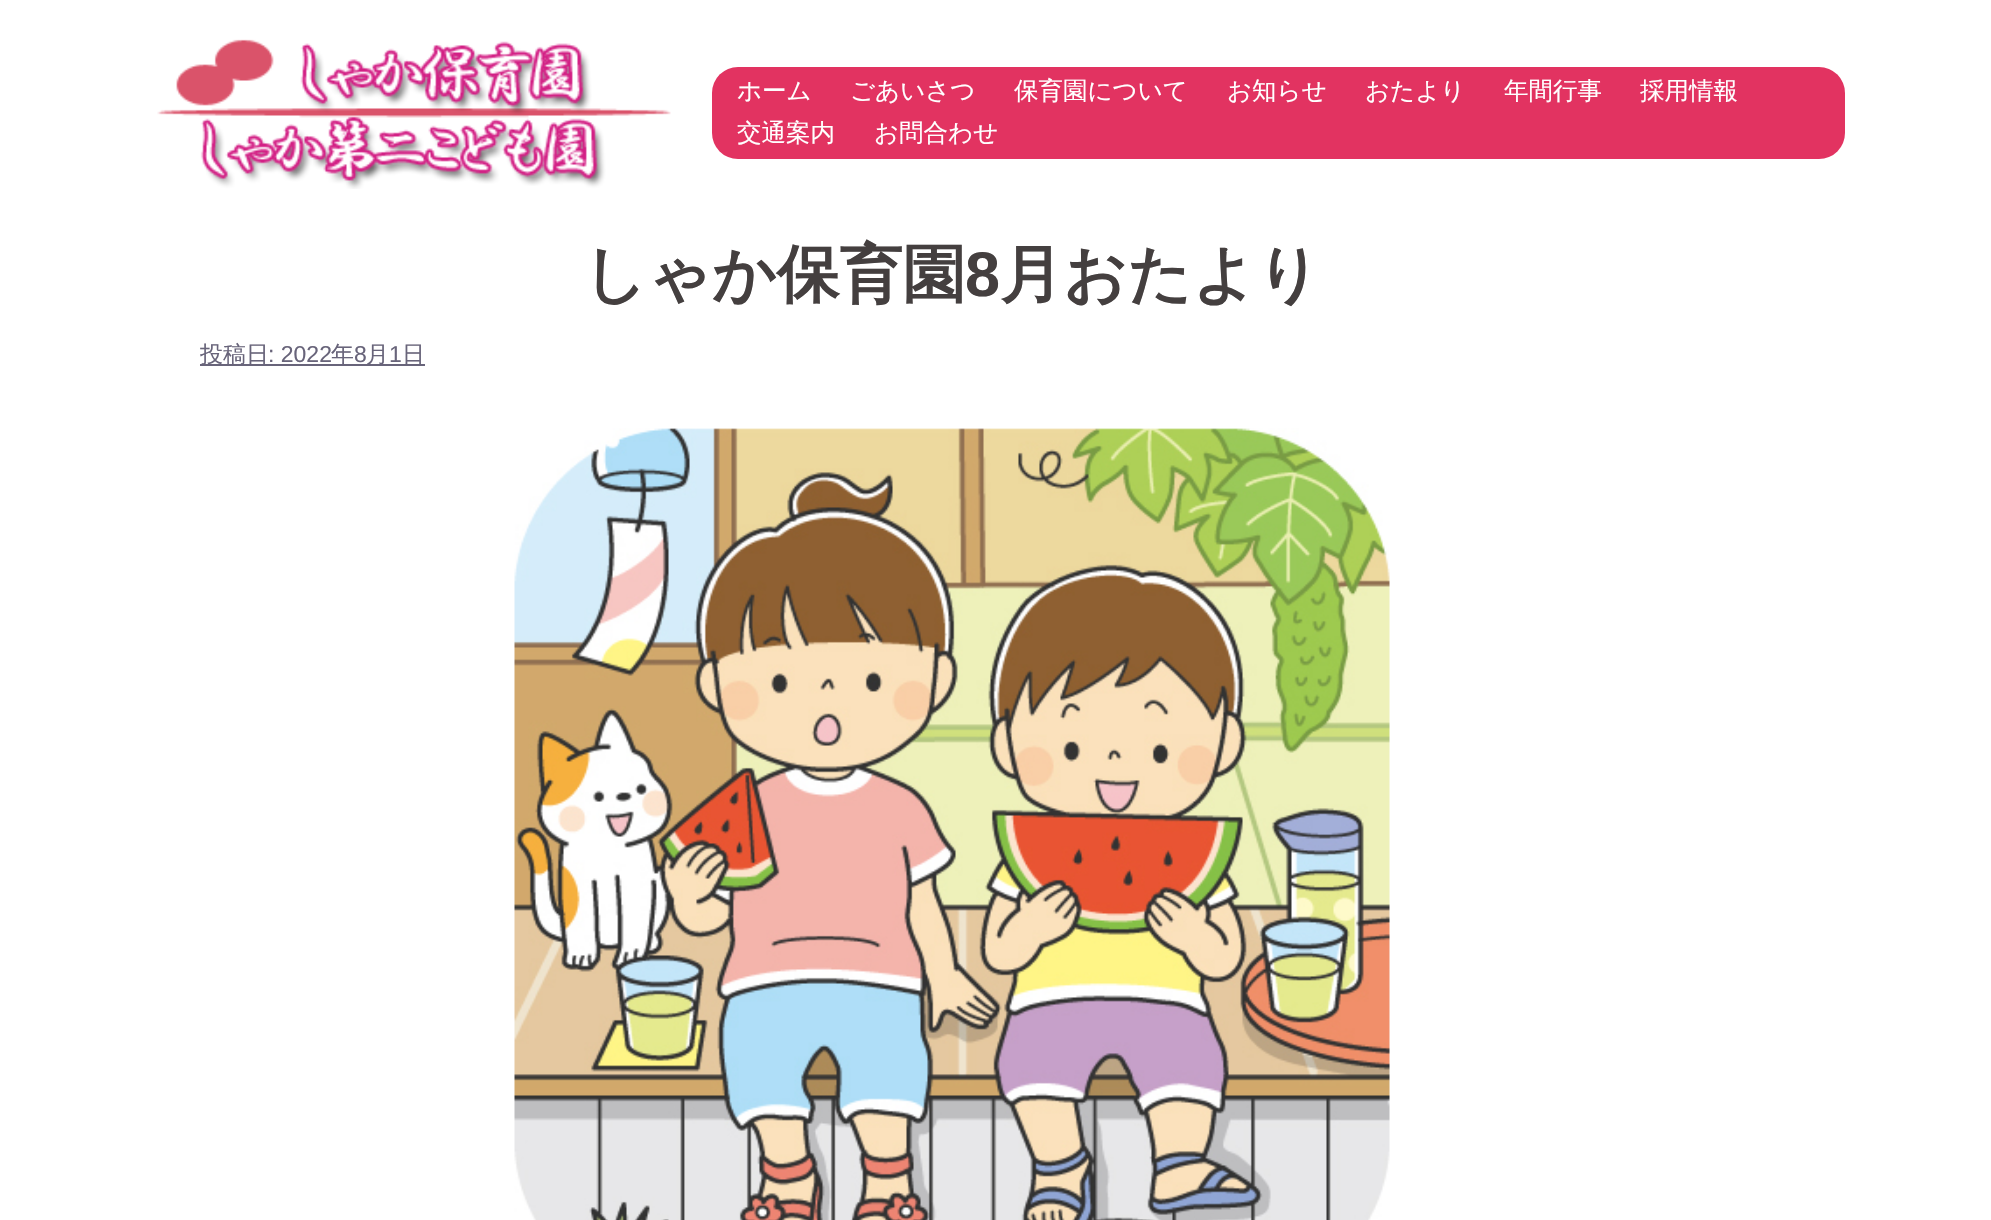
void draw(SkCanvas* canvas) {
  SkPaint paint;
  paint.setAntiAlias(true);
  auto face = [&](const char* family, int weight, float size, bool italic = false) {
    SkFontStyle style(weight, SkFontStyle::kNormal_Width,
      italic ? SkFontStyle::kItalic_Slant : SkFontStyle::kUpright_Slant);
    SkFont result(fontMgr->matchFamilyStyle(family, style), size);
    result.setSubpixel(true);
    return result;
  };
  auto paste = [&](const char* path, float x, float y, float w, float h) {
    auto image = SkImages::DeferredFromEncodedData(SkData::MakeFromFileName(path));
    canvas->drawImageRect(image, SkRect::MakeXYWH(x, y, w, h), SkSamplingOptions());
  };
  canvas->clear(0xffffffff);
  paste("img/1.png", 157, 39, 514, 150);
  paint.setColor(0xffe23361);
  canvas->drawRoundRect(SkRect::MakeXYWH(712, 67, 1133, 92), 26, 26, paint);
  paint.setColor(0xff68647a);
  canvas->drawRect(SkRect::MakeXYWH(200, 364, 225, 2), paint);
  paste("img/2.png", 514, 428, 876, 792);
  auto f0 = face("WenQuanYi Zen Hei", 500, 24.5f);
  paint.setColor(0xffffffff);
  {
    const struct { const char* s; float x, y; } items[] = {
      {"ホーム", 737, 99},
      {"ごあいさつ", 850, 99},
      {"保育園について", 1014, 99},
      {"お知らせ", 1227, 99},
      {"おたより", 1365, 99},
      {"年間行事", 1504, 99},
      {"採用情報", 1640, 99},
      {"交通案内", 737, 141},
      {"お問合わせ", 874, 141},
    };
    for (auto [s, x, y] : items) {
      canvas->drawString(s, x, y, f0, paint);
    }
  }
  auto f1 = face("WenQuanYi Zen Hei", 700, 63);
  paint.setColor(0xff443f3f);
  canvas->drawString("しゃか保育園", 583, 296, f1, paint);
  auto f2 = face("Liberation Sans", 700, 63);
  canvas->drawString("8", 965, 296, f2, paint);
  canvas->drawString("月おたより", 1000, 296, f1, paint);
  auto f3 = face("WenQuanYi Zen Hei", 500, 23);
  paint.setColor(0xff68647a);
  canvas->drawString("投稿日", 200, 362, f3, paint);
  auto f4 = face("Liberation Sans", 400, 23);
  canvas->drawString(": 2022", 268, 362, f4, paint);
  canvas->drawString("年", 331, 362, f3, paint);
  canvas->drawString("8", 354, 362, f4, paint);
  canvas->drawString("月", 366, 362, f3, paint);
  canvas->drawString("1", 389, 362, f4, paint);
  canvas->drawString("日", 402, 362, f3, paint);
}
